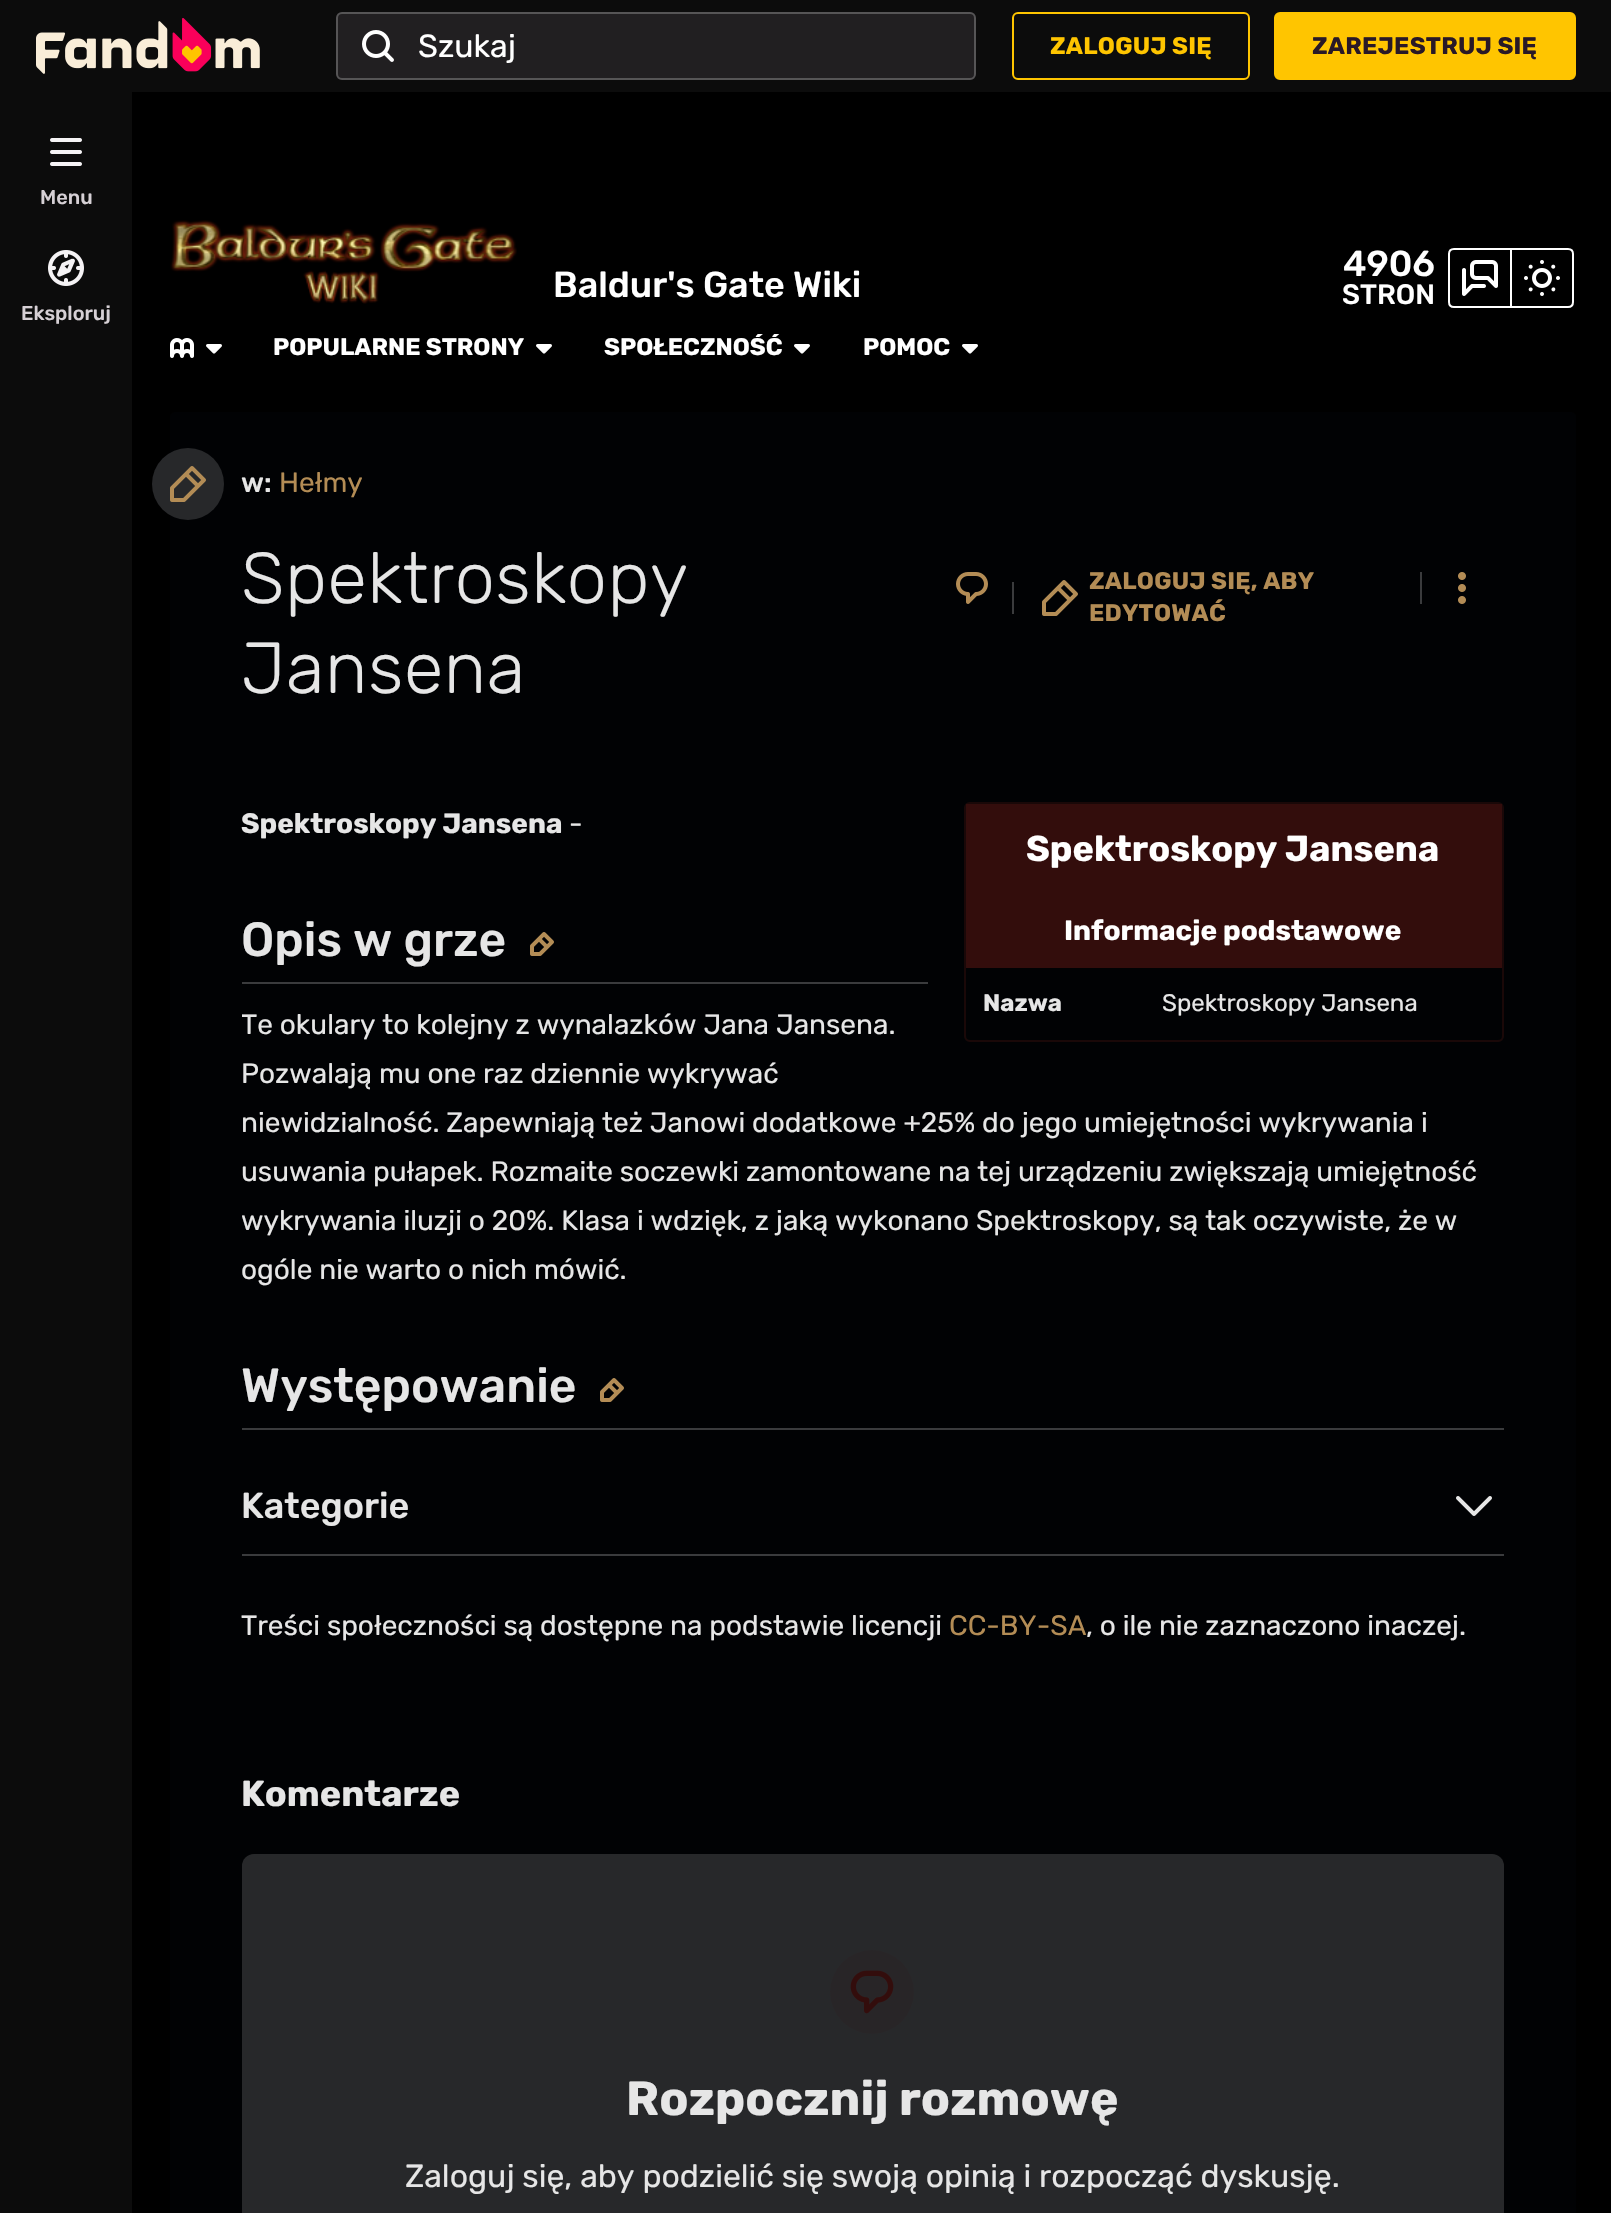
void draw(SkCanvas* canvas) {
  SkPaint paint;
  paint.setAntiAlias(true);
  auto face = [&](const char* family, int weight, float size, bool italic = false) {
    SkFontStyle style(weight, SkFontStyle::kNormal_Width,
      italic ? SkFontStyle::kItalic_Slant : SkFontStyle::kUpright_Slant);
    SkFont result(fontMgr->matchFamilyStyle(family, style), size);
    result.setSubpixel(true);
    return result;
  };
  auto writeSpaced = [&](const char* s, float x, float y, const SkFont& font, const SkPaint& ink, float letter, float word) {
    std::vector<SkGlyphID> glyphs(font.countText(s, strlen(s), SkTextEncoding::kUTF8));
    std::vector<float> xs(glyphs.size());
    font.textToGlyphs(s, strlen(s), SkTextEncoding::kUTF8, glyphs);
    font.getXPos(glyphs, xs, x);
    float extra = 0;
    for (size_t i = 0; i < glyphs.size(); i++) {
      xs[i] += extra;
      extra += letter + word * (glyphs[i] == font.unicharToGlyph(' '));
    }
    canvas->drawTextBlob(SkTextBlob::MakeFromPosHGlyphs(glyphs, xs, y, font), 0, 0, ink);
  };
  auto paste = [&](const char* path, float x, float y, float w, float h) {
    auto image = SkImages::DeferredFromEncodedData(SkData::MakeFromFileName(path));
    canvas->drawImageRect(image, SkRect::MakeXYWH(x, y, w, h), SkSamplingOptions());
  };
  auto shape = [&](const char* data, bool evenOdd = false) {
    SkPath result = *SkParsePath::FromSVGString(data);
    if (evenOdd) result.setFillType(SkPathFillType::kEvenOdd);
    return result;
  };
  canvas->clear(0xff000000);
  paint.setColor(0xff0c0c0c);
  canvas->drawRect(SkRect::MakeXYWH(0, 0, 1611, 92), paint);
  paste("img/1.png", 36, 18, 224, 56);
  paint.setColor(0xff211f21);
  canvas->drawRoundRect(SkRect::MakeXYWH(336, 12, 640, 68), 6, 6, paint);
  paint.setStroke(true);
  paint.setStrokeWidth(2);
  paint.setColor(0x40f5f3f5);
  canvas->drawRoundRect(SkRect::MakeXYWH(337, 13, 638, 66), 5, 5, paint);
  paste("img/2.png", 362, 30, 32, 32);
  paint.setColor(0xffffc500);
  canvas->drawRoundRect(SkRect::MakeXYWH(1013, 13, 236, 66), 5, 5, paint);
  paint.setStroke(false);
  canvas->drawRoundRect(SkRect::MakeXYWH(1275, 13, 300, 66), 5, 5, paint);
  paint.setStroke(true);
  canvas->drawRoundRect(SkRect::MakeXYWH(1275, 13, 300, 66), 5, 5, paint);
  paint.setStroke(false);
  paint.setColor(0xff0c0c0c);
  canvas->drawRect(SkRect::MakeXYWH(0, 92, 132, 2121), paint);
  paste("img/3.png", 50, 138, 32, 28);
  paste("img/4.png", 48, 250, 36, 36);
  paste("img/5.png", 170, 220, 347, 84);
  paint.setStroke(true);
  paint.setColor(0xffffffff);
  canvas->drawPath(shape("M1454 249H1511V307H1454C1451 307 1449 305 1449 302V254C1449 251 1451 249 1454 249Z"), paint);
  paste("img/6.png", 1462, 260, 36, 36);
  canvas->drawPath(shape("M1511 249H1568C1571 249 1573 251 1573 254V302C1573 305 1571 307 1568 307H1511Z"), paint);
  paste("img/7.png", 1524, 260, 36, 36);
  paste("img/8.png", 170, 338, 24, 20);
  paste("img/9.png", 206, 344, 16, 10);
  paste("img/9.png", 536, 344, 16, 10);
  paste("img/9.png", 794, 344, 16, 10);
  paste("img/9.png", 962, 344, 16, 10);
  paint.setStroke(false);
  paint.setColor(0xff010204);
  canvas->drawPath(shape("M176 412H1570C1573.5 412 1576 414.5 1576 418V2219H170V418C170 414.5 172.5 412 176 412Z"), paint);
  paint.setColor(0xff27282a);
  canvas->drawCircle(188, 484, 36, paint);
  paste("img/10.png", 170, 466, 36, 36);
  paste("img/11.png", 956, 572, 32, 32);
  paint.setColor(0xff3a3b3d);
  canvas->drawRect(SkRect::MakeXYWH(1012, 582, 2, 32), paint);
  paste("img/12.png", 1042, 580, 36, 36);
  canvas->drawRect(SkRect::MakeXYWH(1420, 572, 2, 32), paint);
  paste("img/13.png", 1458, 572, 8, 32);
  canvas->drawRect(SkRect::MakeXYWH(242, 982, 686, 2), paint);
  paste("img/14.png", 530, 932, 24, 24);
  paint.setStroke(true);
  paint.setColor(0xff1a0808);
  canvas->drawRoundRect(SkRect::MakeXYWH(965, 803, 538, 238), 5, 5, paint);
  paint.setStroke(false);
  paint.setColor(0xff330d0c);
  canvas->drawRect(SkRect::MakeXYWH(966, 804, 536, 164), paint);
  paint.setColor(0xff3a3b3d);
  canvas->drawRect(SkRect::MakeXYWH(242, 1428, 1262, 2), paint);
  paste("img/14.png", 600, 1378, 24, 24);
  canvas->drawRect(SkRect::MakeXYWH(242, 1554, 1262, 2), paint);
  paste("img/15.png", 1456, 1496, 36, 20);
  paint.setColor(0xff27282a);
  canvas->drawRoundRect(SkRect::MakeXYWH(242, 1854, 1262, 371), 12, 12, paint);
  paint.setColor(0xff282527);
  canvas->drawCircle(872, 1992, 42, paint);
  paste("img/16.png", 850, 1970, 44, 44);
  auto f0 = face("Rubik", 400, 32);
  paint.setColor(0xffffffff);
  canvas->drawString("Szukaj", 418, 57, f0, paint);
  auto f1 = face("Rubik", 700, 24);
  paint.setColor(0xffffc500);
  writeSpaced("ZALOGUJ SIĘ", 1050, 54, f1, paint, 0.25f, 0);
  paint.setColor(0xff291927);
  writeSpaced("ZAREJESTRUJ SIĘ", 1312, 54, f1, paint, 0.25f, 0);
  auto f2 = face("Rubik", 500, 20);
  paint.setColor(0xffd6d0d5);
  canvas->drawString("Menu", 40, 204, f2, paint);
  canvas->drawString("Eksploruj", 21, 320, f2, paint);
  auto f3 = face("Rubik", 500, 36);
  paint.setColor(0xffffffff);
  canvas->drawString("Baldur's Gate Wiki", 553, 297, f3, paint);
  canvas->drawString("4906", 1343, 276, f3, paint);
  auto f4 = face("Rubik", 500, 28);
  canvas->drawString("STRON", 1342, 304, f4, paint);
  canvas->drawString("POPULARNE STRONY", 273, 355, f1, paint);
  canvas->save();
  canvas->clipRect(SkRect::MakeXYWH(604, 334, 178, 30));
  canvas->drawString("SPOŁECZNOŚĆ", 604, 355, f1, paint);
  canvas->restore();
  canvas->drawString("POMOC", 863, 355, f1, paint);
  paint.setColor(0xffe6e6e6);
  canvas->drawString("w:", 241, 492, f4, paint);
  auto f5 = face("Rubik", 400, 28);
  paint.setColor(0xffb38c55);
  canvas->drawString("Hełmy", 279, 492, f5, paint);
  auto f6 = face("Rubik", 300, 72);
  paint.setColor(0xffe6e6e6);
  writeSpaced("Spektroskopy", 241, 603, f6, paint, 0.5f, 0);
  writeSpaced("Jansena", 241, 693, f6, paint, 0.5f, 0);
  paint.setColor(0xffb38c55);
  writeSpaced("ZALOGUJ SIĘ, ABY", 1089, 589, f1, paint, 0.25f, 0);
  writeSpaced("EDYTOWAĆ", 1089, 621, f1, paint, 0.25f, 0);
  auto f7 = face("Rubik", 700, 28);
  paint.setColor(0xffe6e6e6);
  canvas->drawString("Spektroskopy Jansena", 241, 833, f7, paint);
  canvas->drawString("-", 569, 833, f5, paint);
  auto f8 = face("Rubik", 500, 48);
  canvas->drawString("Opis w grze", 241, 956, f8, paint);
  auto f9 = face("Rubik", 700, 36);
  paint.setColor(0xffffffff);
  canvas->drawString("Spektroskopy Jansena", 1026, 861, f9, paint);
  canvas->drawString("Informacje podstawowe", 1064, 940, f7, paint);
  paint.setColor(0xffe6e6e6);
  canvas->drawString("Nazwa", 983, 1011, f1, paint);
  auto f10 = face("Rubik", 400, 24);
  canvas->drawString("Spektroskopy Jansena", 1162, 1011, f10, paint);
  canvas->save();
  canvas->clipRect(SkRect::MakeXYWH(242, 754, 1262, 694));
  canvas->drawString("Te okulary to kolejny z wynalazków Jana Jansena.", 241, 1034, f5, paint);
  canvas->restore();
  {
    const struct { const char* s; float x, y; } items[] = {
      {"Pozwalają mu one raz dziennie wykrywać", 241, 1083},
      {"niewidzialność. Zapewniają też Janowi dodatkowe +25% do jego umiejętności wykrywania i", 241, 1132},
      {"usuwania pułapek. Rozmaite soczewki zamontowane na tej urządzeniu zwiększają umiejętność", 241, 1181},
      {"wykrywania iluzji o 20%. Klasa i wdzięk, z jaką wykonano Spektroskopy, są tak oczywiste, że w", 241, 1230},
      {"ogóle nie warto o nich mówić.", 241, 1279},
    };
    for (auto [s, x, y] : items) {
      canvas->drawString(s, x, y, f5, paint);
    }
  }
  canvas->drawString("Występowanie", 241, 1402, f8, paint);
  canvas->drawString("Kategorie", 241, 1518, f3, paint);
  canvas->drawString("Treści społeczności są dostępne na podstawie licencji", 241, 1635, f5, paint);
  paint.setColor(0xffb38c55);
  canvas->drawString("CC-BY-SA", 949, 1635, f5, paint);
  paint.setColor(0xffe6e6e6);
  canvas->drawString(", o ile nie zaznaczono inaczej.", 1086, 1635, f5, paint);
  canvas->drawString("Komentarze", 241, 1806, f9, paint);
  auto f11 = face("Rubik", 700, 48);
  canvas->drawString("Rozpocznij rozmowę", 626, 2115, f11, paint);
  canvas->drawString("Zaloguj się, aby podzielić się swoją opinią i rozpocząć dyskusję.", 405, 2187, f0, paint);
}
